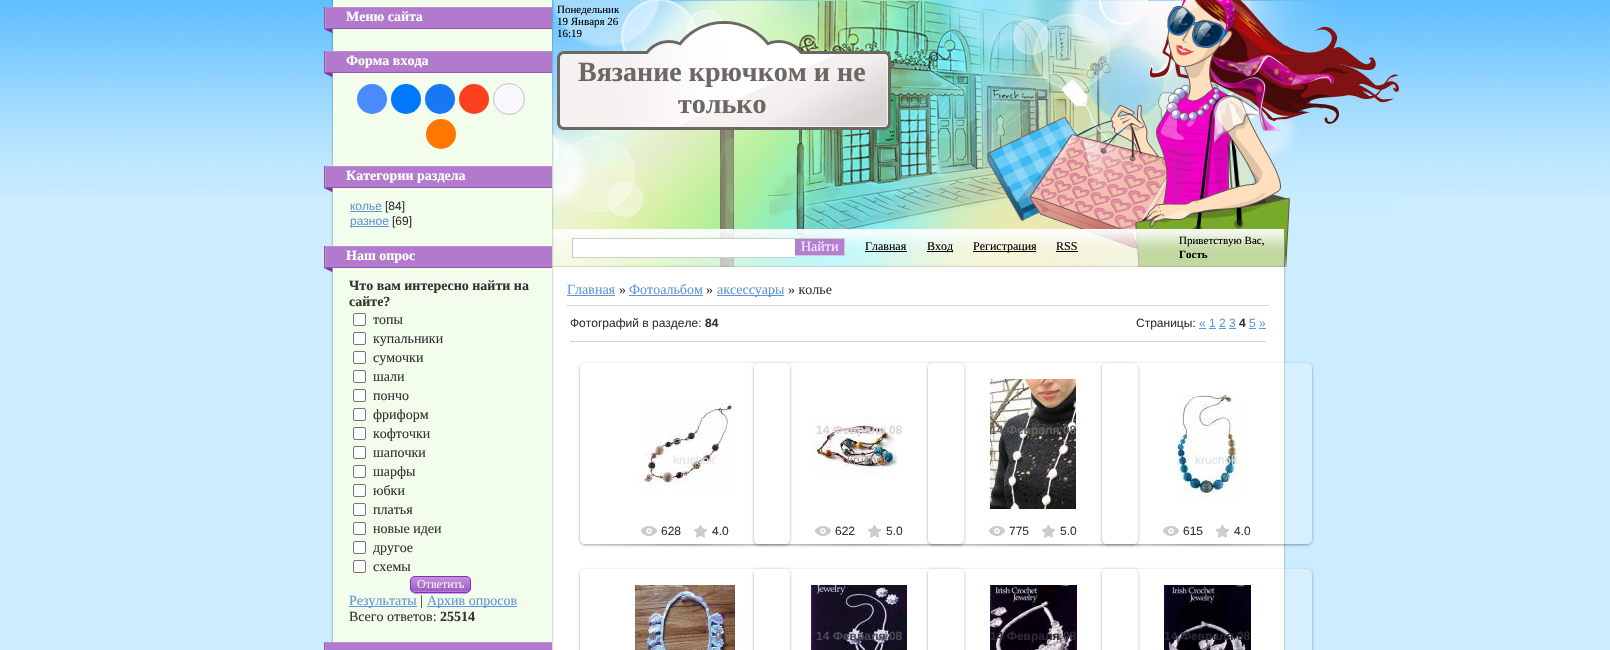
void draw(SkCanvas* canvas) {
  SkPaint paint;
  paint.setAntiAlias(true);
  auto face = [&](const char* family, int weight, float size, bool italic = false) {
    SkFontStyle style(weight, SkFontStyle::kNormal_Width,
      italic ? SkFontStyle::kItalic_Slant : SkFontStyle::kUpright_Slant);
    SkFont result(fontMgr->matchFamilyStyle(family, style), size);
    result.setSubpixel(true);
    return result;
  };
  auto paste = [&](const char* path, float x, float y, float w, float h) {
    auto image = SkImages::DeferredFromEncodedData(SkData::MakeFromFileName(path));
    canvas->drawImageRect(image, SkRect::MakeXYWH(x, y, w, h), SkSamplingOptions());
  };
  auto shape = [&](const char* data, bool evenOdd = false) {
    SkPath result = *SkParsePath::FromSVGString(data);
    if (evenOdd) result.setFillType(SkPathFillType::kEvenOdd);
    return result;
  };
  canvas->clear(0xffccedff);
  paste("img/1.png", 0, 0, 1610, 196);
  paste("img/2.png", 1286, 0, 113, 267);
  paste("img/3.png", 331, 0, 955, 650);
  paste("img/4.png", 324, 29, 9, 5);
  {
    const struct { float x, y, w, h; SkColor color; } items[] = {
      {324, 28, 228, 1, 0xff9456b3},
      {324, 7, 1, 22, 0xff9456b3},
      {326, 8, 226, 20, 0xffb17acd},
      {325, 7, 227, 1, 0xffb98dd0},
      {325, 7, 1, 21, 0xffb98dd0},
    };
    for (auto [x, y, w, h, color] : items) {
      paint.setColor(color);
      canvas->drawRect(SkRect::MakeXYWH(x, y, w, h), paint);
    }
  }
  paste("img/5.png", 324, 73, 9, 5);
  {
    const struct { float x, y, w, h; SkColor color; } items[] = {
      {324, 72, 228, 1, 0xff9456b3},
      {324, 51, 1, 22, 0xff9456b3},
      {326, 52, 226, 20, 0xffb17acd},
      {325, 51, 227, 1, 0xffb98dd0},
      {325, 51, 1, 21, 0xffb98dd0},
    };
    for (auto [x, y, w, h, color] : items) {
      paint.setColor(color);
      canvas->drawRect(SkRect::MakeXYWH(x, y, w, h), paint);
    }
  }
  paint.setColor(0xff498bfa);
  canvas->drawCircle(372, 99, 15, paint);
  paint.setColor(0xff0077ff);
  canvas->drawCircle(406, 99, 15, paint);
  paint.setColor(0xff1877f2);
  canvas->drawCircle(440, 99, 15, paint);
  paint.setColor(0xfffc3f1d);
  canvas->drawCircle(474, 99, 15, paint);
  paint.setColor(0xfff8f8fc);
  canvas->drawCircle(509, 99, 15.5f, paint);
  paint.setStroke(true);
  paint.setStrokeWidth(1);
  paint.setColor(0xffc4c4c4);
  canvas->drawCircle(509, 99, 15.5f, paint);
  paint.setStroke(false);
  paint.setColor(0xffff7700);
  canvas->drawCircle(441, 134, 15, paint);
  paste("img/6.png", 324, 188, 9, 5);
  {
    const struct { float x, y, w, h; SkColor color; } items[] = {
      {324, 187, 228, 1, 0xff9456b3},
      {324, 166, 1, 22, 0xff9456b3},
      {326, 167, 226, 20, 0xffb17acd},
      {325, 166, 227, 1, 0xffb98dd0},
      {325, 166, 1, 21, 0xffb98dd0},
      {350, 211, 32, 1, 0xff6196da},
      {350, 226, 39, 1, 0xff6196da},
    };
    for (auto [x, y, w, h, color] : items) {
      paint.setColor(color);
      canvas->drawRect(SkRect::MakeXYWH(x, y, w, h), paint);
    }
  }
  paste("img/7.png", 324, 268, 9, 5);
  {
    const struct { float x, y, w, h; SkColor color; } items[] = {
      {324, 267, 228, 1, 0xff9456b3},
      {324, 246, 1, 22, 0xff9456b3},
      {326, 247, 226, 20, 0xffb17acd},
      {325, 246, 227, 1, 0xffb98dd0},
      {325, 246, 1, 21, 0xffb98dd0},
    };
    for (auto [x, y, w, h, color] : items) {
      paint.setColor(color);
      canvas->drawRect(SkRect::MakeXYWH(x, y, w, h), paint);
    }
  }
  paint.setColor(0xffffffff);
  canvas->drawRoundRect(SkRect::MakeXYWH(353.5f, 313.5f, 12, 12), 1.5f, 1.5f, paint);
  paint.setStroke(true);
  paint.setColor(0xff767676);
  canvas->drawRoundRect(SkRect::MakeXYWH(353.5f, 313.5f, 12, 12), 1.5f, 1.5f, paint);
  paint.setStroke(false);
  paint.setColor(0xffffffff);
  canvas->drawRoundRect(SkRect::MakeXYWH(353.5f, 332.5f, 12, 12), 1.5f, 1.5f, paint);
  paint.setStroke(true);
  paint.setColor(0xff767676);
  canvas->drawRoundRect(SkRect::MakeXYWH(353.5f, 332.5f, 12, 12), 1.5f, 1.5f, paint);
  paint.setStroke(false);
  paint.setColor(0xffffffff);
  canvas->drawRoundRect(SkRect::MakeXYWH(353.5f, 351.5f, 12, 12), 1.5f, 1.5f, paint);
  paint.setStroke(true);
  paint.setColor(0xff767676);
  canvas->drawRoundRect(SkRect::MakeXYWH(353.5f, 351.5f, 12, 12), 1.5f, 1.5f, paint);
  paint.setStroke(false);
  paint.setColor(0xffffffff);
  canvas->drawRoundRect(SkRect::MakeXYWH(353.5f, 370.5f, 12, 12), 1.5f, 1.5f, paint);
  paint.setStroke(true);
  paint.setColor(0xff767676);
  canvas->drawRoundRect(SkRect::MakeXYWH(353.5f, 370.5f, 12, 12), 1.5f, 1.5f, paint);
  paint.setStroke(false);
  paint.setColor(0xffffffff);
  canvas->drawRoundRect(SkRect::MakeXYWH(353.5f, 389.5f, 12, 12), 1.5f, 1.5f, paint);
  paint.setStroke(true);
  paint.setColor(0xff767676);
  canvas->drawRoundRect(SkRect::MakeXYWH(353.5f, 389.5f, 12, 12), 1.5f, 1.5f, paint);
  paint.setStroke(false);
  paint.setColor(0xffffffff);
  canvas->drawRoundRect(SkRect::MakeXYWH(353.5f, 408.5f, 12, 12), 1.5f, 1.5f, paint);
  paint.setStroke(true);
  paint.setColor(0xff767676);
  canvas->drawRoundRect(SkRect::MakeXYWH(353.5f, 408.5f, 12, 12), 1.5f, 1.5f, paint);
  paint.setStroke(false);
  paint.setColor(0xffffffff);
  canvas->drawRoundRect(SkRect::MakeXYWH(353.5f, 427.5f, 12, 12), 1.5f, 1.5f, paint);
  paint.setStroke(true);
  paint.setColor(0xff767676);
  canvas->drawRoundRect(SkRect::MakeXYWH(353.5f, 427.5f, 12, 12), 1.5f, 1.5f, paint);
  paint.setStroke(false);
  paint.setColor(0xffffffff);
  canvas->drawRoundRect(SkRect::MakeXYWH(353.5f, 446.5f, 12, 12), 1.5f, 1.5f, paint);
  paint.setStroke(true);
  paint.setColor(0xff767676);
  canvas->drawRoundRect(SkRect::MakeXYWH(353.5f, 446.5f, 12, 12), 1.5f, 1.5f, paint);
  paint.setStroke(false);
  paint.setColor(0xffffffff);
  canvas->drawRoundRect(SkRect::MakeXYWH(353.5f, 465.5f, 12, 12), 1.5f, 1.5f, paint);
  paint.setStroke(true);
  paint.setColor(0xff767676);
  canvas->drawRoundRect(SkRect::MakeXYWH(353.5f, 465.5f, 12, 12), 1.5f, 1.5f, paint);
  paint.setStroke(false);
  paint.setColor(0xffffffff);
  canvas->drawRoundRect(SkRect::MakeXYWH(353.5f, 484.5f, 12, 12), 1.5f, 1.5f, paint);
  paint.setStroke(true);
  paint.setColor(0xff767676);
  canvas->drawRoundRect(SkRect::MakeXYWH(353.5f, 484.5f, 12, 12), 1.5f, 1.5f, paint);
  paint.setStroke(false);
  paint.setColor(0xffffffff);
  canvas->drawRoundRect(SkRect::MakeXYWH(353.5f, 503.5f, 12, 12), 1.5f, 1.5f, paint);
  paint.setStroke(true);
  paint.setColor(0xff767676);
  canvas->drawRoundRect(SkRect::MakeXYWH(353.5f, 503.5f, 12, 12), 1.5f, 1.5f, paint);
  paint.setStroke(false);
  paint.setColor(0xffffffff);
  canvas->drawRoundRect(SkRect::MakeXYWH(353.5f, 522.5f, 12, 12), 1.5f, 1.5f, paint);
  paint.setStroke(true);
  paint.setColor(0xff767676);
  canvas->drawRoundRect(SkRect::MakeXYWH(353.5f, 522.5f, 12, 12), 1.5f, 1.5f, paint);
  paint.setStroke(false);
  paint.setColor(0xffffffff);
  canvas->drawRoundRect(SkRect::MakeXYWH(353.5f, 541.5f, 12, 12), 1.5f, 1.5f, paint);
  paint.setStroke(true);
  paint.setColor(0xff767676);
  canvas->drawRoundRect(SkRect::MakeXYWH(353.5f, 541.5f, 12, 12), 1.5f, 1.5f, paint);
  paint.setStroke(false);
  paint.setColor(0xffffffff);
  canvas->drawRoundRect(SkRect::MakeXYWH(353.5f, 560.5f, 12, 12), 1.5f, 1.5f, paint);
  paint.setStroke(true);
  paint.setColor(0xff767676);
  canvas->drawRoundRect(SkRect::MakeXYWH(353.5f, 560.5f, 12, 12), 1.5f, 1.5f, paint);
  paint.setStroke(false);
  paint.setColor(0xffbaace3);
  canvas->drawPath(shape("M410 588C410 596 418 594 424 594H458C463 594 471 596 471 588C471 591 469 593 466 593H415C412 593 410 591 410 588Z"), paint);
  paste("img/8.png", 410, 576, 61, 16);
  paint.setStroke(true);
  paint.setColor(0xff9025c7);
  canvas->drawRoundRect(SkRect::MakeXYWH(410.5f, 576.5f, 60, 16), 4.5f, 4.5f, paint);
  paint.setStroke(false);
  {
    const struct { float x, y, w, h; SkColor color; } items[] = {
      {349, 606, 68, 1, 0xff6196da},
      {427, 606, 90, 1, 0xff6196da},
      {324, 642, 1, 8, 0xff9456b3},
      {325, 643, 227, 7, 0xffb17acd},
      {325, 642, 227, 1, 0xffb98dd0},
      {325, 642, 1, 8, 0xffb98dd0},
    };
    for (auto [x, y, w, h, color] : items) {
      paint.setColor(color);
      canvas->drawRect(SkRect::MakeXYWH(x, y, w, h), paint);
    }
  }
  paste("img/9.png", 552, 0, 734, 267);
  paste("img/10.png", 552, 229, 732, 38);
  paste("img/11.png", 552, 0, 2, 267);
  {
    const struct { float x, y, w, h; SkColor color; } items[] = {
      {573, 239, 222, 18, 0xffffffff},
      {572, 238, 273, 1, 0xffcccccc},
      {572, 257, 223, 1, 0xffcccccc},
      {572, 238, 1, 20, 0xffcccccc},
      {795, 239, 49, 16, 0xffb57fd1},
      {844, 238, 1, 18, 0xffcccccc},
      {795, 255, 50, 1, 0xffcccccc},
      {865, 251, 42, 1, 0xff000000},
      {927, 251, 26, 1, 0xff000000},
      {973, 251, 63, 1, 0xff000000},
      {1056, 251, 22, 1, 0xff000000},
      {567, 295, 48, 1, 0xff6196da},
      {629, 295, 74, 1, 0xff6196da},
      {717, 295, 67, 1, 0xff6196da},
      {567, 305, 702, 1, 0xffd6d6d6},
      {1199, 328, 7, 1, 0xff6196da},
      {1209, 328, 7, 1, 0xff6196da},
      {1219, 328, 7, 1, 0xff6196da},
      {1229, 328, 7, 1, 0xff6196da},
      {1249, 328, 7, 1, 0xff6196da},
      {1259, 328, 7, 1, 0xff6196da},
      {570, 341, 696, 1, 0xffd6d6d6},
    };
    for (auto [x, y, w, h, color] : items) {
      paint.setColor(color);
      canvas->drawRect(SkRect::MakeXYWH(x, y, w, h), paint);
    }
  }
  canvas->save();
  canvas->clipPath(shape("M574 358H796V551H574ZM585 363H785C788 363 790 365 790 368V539C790 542 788 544 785 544H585C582 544 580 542 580 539V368C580 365 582 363 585 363Z", true), true);
  paint.setColor(0x5e000000);
  paint.setMaskFilter(SkMaskFilter::MakeBlur(kNormal_SkBlurStyle, 1.5f));
  canvas->drawRoundRect(SkRect::MakeXYWH(580, 364, 210, 181), 5, 5, paint);
  paint.setMaskFilter(nullptr);
  canvas->restore();
  paste("img/12.png", 639, 403, 96, 88);
  paste("img/13.png", 641, 526, 16, 10);
  paste("img/14.png", 694, 525, 13, 13);
  paste("img/15.png", 605, 544, 161, 3);
  canvas->save();
  canvas->clipPath(shape("M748 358H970V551H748ZM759 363H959C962 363 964 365 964 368V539C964 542 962 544 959 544H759C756 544 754 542 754 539V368C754 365 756 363 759 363Z", true), true);
  paint.setMaskFilter(SkMaskFilter::MakeBlur(kNormal_SkBlurStyle, 1.5f));
  canvas->drawRoundRect(SkRect::MakeXYWH(754, 364, 210, 181), 5, 5, paint);
  paint.setMaskFilter(nullptr);
  canvas->restore();
  paint.setColor(0x33ffffff);
  canvas->drawRect(SkRect::MakeXYWH(787, 367, 4, 177), paint);
  paste("img/16.png", 813, 415, 85, 60);
  paste("img/13.png", 815, 526, 16, 10);
  paste("img/14.png", 868, 525, 13, 13);
  paste("img/17.png", 782, 544, 158, 3);
  canvas->save();
  canvas->clipPath(shape("M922 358H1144V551H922ZM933 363H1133C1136 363 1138 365 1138 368V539C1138 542 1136 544 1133 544H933C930 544 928 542 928 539V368C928 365 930 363 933 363Z", true), true);
  paint.setColor(0x5e000000);
  paint.setMaskFilter(SkMaskFilter::MakeBlur(kNormal_SkBlurStyle, 1.5f));
  canvas->drawRoundRect(SkRect::MakeXYWH(928, 364, 210, 181), 5, 5, paint);
  paint.setMaskFilter(nullptr);
  canvas->restore();
  paint.setColor(0x33ffffff);
  canvas->drawRect(SkRect::MakeXYWH(961, 367, 4, 177), paint);
  paste("img/18.png", 990, 379, 86, 130);
  paste("img/13.png", 989, 526, 16, 10);
  paste("img/14.png", 1042, 525, 13, 13);
  paste("img/17.png", 956, 544, 158, 3);
  canvas->save();
  canvas->clipPath(shape("M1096 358H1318V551H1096ZM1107 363H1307C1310 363 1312 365 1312 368V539C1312 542 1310 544 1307 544H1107C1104 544 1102 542 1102 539V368C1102 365 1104 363 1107 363Z", true), true);
  paint.setColor(0x5e000000);
  paint.setMaskFilter(SkMaskFilter::MakeBlur(kNormal_SkBlurStyle, 1.5f));
  canvas->drawRoundRect(SkRect::MakeXYWH(1102, 364, 210, 181), 5, 5, paint);
  paint.setMaskFilter(nullptr);
  canvas->restore();
  paste("img/19.png", 1135, 363, 177, 181);
  paste("img/20.png", 1176, 394, 66, 105);
  paste("img/13.png", 1163, 526, 16, 10);
  paste("img/14.png", 1216, 525, 13, 13);
  paste("img/21.png", 1130, 544, 158, 3);
  canvas->save();
  canvas->clipPath(shape("M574 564H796V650H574ZM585 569H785C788 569 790 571 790 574V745C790 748 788 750 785 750H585C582 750 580 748 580 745V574C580 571 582 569 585 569Z", true), true);
  paint.setMaskFilter(SkMaskFilter::MakeBlur(kNormal_SkBlurStyle, 1.5f));
  canvas->drawRoundRect(SkRect::MakeXYWH(580, 570, 210, 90), 5, 5, paint);
  paint.setMaskFilter(nullptr);
  canvas->restore();
  paste("img/22.png", 635, 585, 100, 65);
  canvas->save();
  canvas->clipPath(shape("M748 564H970V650H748ZM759 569H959C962 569 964 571 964 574V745C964 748 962 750 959 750H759C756 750 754 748 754 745V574C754 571 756 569 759 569Z", true), true);
  paint.setMaskFilter(SkMaskFilter::MakeBlur(kNormal_SkBlurStyle, 1.5f));
  canvas->drawRoundRect(SkRect::MakeXYWH(754, 570, 210, 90), 5, 5, paint);
  paint.setMaskFilter(nullptr);
  canvas->restore();
  paint.setColor(0x33ffffff);
  canvas->drawRect(SkRect::MakeXYWH(790, 573, 1, 77), paint);
  paste("img/23.png", 811, 585, 96, 65);
  canvas->save();
  canvas->clipPath(shape("M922 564H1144V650H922ZM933 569H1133C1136 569 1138 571 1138 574V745C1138 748 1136 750 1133 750H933C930 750 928 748 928 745V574C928 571 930 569 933 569Z", true), true);
  paint.setColor(0x5e000000);
  paint.setMaskFilter(SkMaskFilter::MakeBlur(kNormal_SkBlurStyle, 1.5f));
  canvas->drawRoundRect(SkRect::MakeXYWH(928, 570, 210, 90), 5, 5, paint);
  paint.setMaskFilter(nullptr);
  canvas->restore();
  paint.setColor(0x33ffffff);
  canvas->drawRect(SkRect::MakeXYWH(964, 573, 1, 77), paint);
  paste("img/24.png", 990, 585, 87, 65);
  canvas->save();
  canvas->clipPath(shape("M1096 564H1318V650H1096ZM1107 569H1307C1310 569 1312 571 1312 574V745C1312 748 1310 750 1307 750H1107C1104 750 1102 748 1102 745V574C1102 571 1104 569 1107 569Z", true), true);
  paint.setColor(0x5e000000);
  paint.setMaskFilter(SkMaskFilter::MakeBlur(kNormal_SkBlurStyle, 1.5f));
  canvas->drawRoundRect(SkRect::MakeXYWH(1102, 570, 210, 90), 5, 5, paint);
  paint.setMaskFilter(nullptr);
  canvas->restore();
  paste("img/25.png", 1138, 569, 174, 81);
  paste("img/26.png", 1164, 585, 87, 65);
  auto f0 = face("Liberation Serif", 700, 14);
  paint.setColor(0xffffffff);
  {
    const struct { const char* s; float x, y; } items[] = {
      {"Меню сайта", 346, 21},
      {"Форма входа", 346, 65},
      {"Категории раздела", 346, 180},
    };
    for (auto [s, x, y] : items) {
      canvas->drawString(s, x, y, f0, paint);
    }
  }
  auto f1 = face("Liberation Sans", 400, 12);
  paint.setColor(0xff6196da);
  canvas->drawString("колье", 350, 210, f1, paint);
  paint.setColor(0xff333333);
  canvas->drawString("[84]", 385, 210, f1, paint);
  paint.setColor(0xff6196da);
  canvas->drawString("разное", 350, 225, f1, paint);
  paint.setColor(0xff333333);
  canvas->drawString("[69]", 392, 225, f1, paint);
  paint.setColor(0xffffffff);
  canvas->drawString("Наш опрос", 346, 260, f0, paint);
  paint.setColor(0xff333333);
  canvas->drawString("Что вам интересно найти на", 349, 290, f0, paint);
  canvas->drawString("сайте?", 349, 306, f0, paint);
  auto f2 = face("Liberation Serif", 400, 14);
  {
    const struct { const char* s; float x, y; } items[] = {
      {"топы", 373, 324},
      {"купальники", 373, 343},
      {"сумочки", 373, 362},
      {"шали", 373, 381},
      {"пончо", 373, 400},
      {"фриформ", 373, 419},
      {"кофточки", 373, 438},
      {"шапочки", 373, 457},
      {"шарфы", 373, 476},
      {"юбки", 373, 495},
      {"платья", 373, 514},
      {"новые идеи", 373, 533},
      {"другое", 373, 552},
      {"схемы", 373, 571},
    };
    for (auto [s, x, y] : items) {
      canvas->drawString(s, x, y, f2, paint);
    }
  }
  auto f3 = face("Liberation Serif", 400, 12);
  paint.setColor(0xfff7e8ff);
  canvas->drawString("Ответить", 417, 588, f3, paint);
  paint.setColor(0xff6196da);
  canvas->drawString("Результаты", 349, 605, f2, paint);
  paint.setColor(0xff333333);
  canvas->drawString("|", 420, 605, f2, paint);
  paint.setColor(0xff6196da);
  canvas->drawString("Архив опросов", 427, 605, f2, paint);
  paint.setColor(0xff333333);
  canvas->drawString("Всего ответов:", 349, 621, f2, paint);
  canvas->drawString("25514", 440, 621, f0, paint);
  auto f4 = face("Liberation Serif", 400, 11);
  paint.setColor(0xff000000);
  {
    const struct { const char* s; float x, y; } items[] = {
      {"Понедельник", 557, 13},
      {"19 Января 26", 557, 25},
      {"16:19", 557, 37},
    };
    for (auto [s, x, y] : items) {
      canvas->drawString(s, x, y, f4, paint);
    }
  }
  auto f5 = face("Liberation Serif", 700, 28);
  paint.setColor(0xff6b6863);
  canvas->drawString("Вязание крючком и не", 578, 81, f5, paint);
  canvas->drawString("только", 678, 113, f5, paint);
  paint.setColor(0xfff7e8ff);
  canvas->drawString("Найти", 801, 251, f2, paint);
  paint.setColor(0xff000000);
  {
    const struct { const char* s; float x, y; } items[] = {
      {"Главная", 865, 250},
      {"Вход", 927, 250},
      {"Регистрация", 973, 250},
      {"RSS", 1056, 250},
    };
    for (auto [s, x, y] : items) {
      canvas->drawString(s, x, y, f3, paint);
    }
  }
  canvas->drawString("Приветствую Вас,", 1179, 244, f4, paint);
  auto f6 = face("Liberation Serif", 700, 11);
  canvas->drawString("Гость", 1179, 258, f6, paint);
  paint.setColor(0xff6196da);
  canvas->drawString("Главная", 567, 294, f2, paint);
  paint.setColor(0xff333333);
  canvas->drawString("»", 619, 294, f2, paint);
  paint.setColor(0xff6196da);
  canvas->drawString("Фотоальбом", 629, 294, f2, paint);
  paint.setColor(0xff333333);
  canvas->drawString("»", 706, 294, f2, paint);
  paint.setColor(0xff6196da);
  canvas->drawString("аксессуары", 717, 294, f2, paint);
  paint.setColor(0xff333333);
  canvas->drawString("» колье", 788, 294, f2, paint);
  canvas->drawString("Фотографий в разделе:", 570, 327, f1, paint);
  auto f7 = face("Liberation Sans", 700, 12);
  canvas->drawString("84", 705, 327, f7, paint);
  canvas->drawString("Страницы:", 1136, 327, f1, paint);
  paint.setColor(0xff6196da);
  canvas->drawString("« 1 2 3", 1199, 327, f1, paint);
  paint.setColor(0xff333333);
  canvas->drawString("4", 1239, 327, f7, paint);
  paint.setColor(0xff6196da);
  canvas->drawString("5 »", 1249, 327, f1, paint);
  paint.setColor(0xffe5e2e2);
  canvas->drawString("kruchok", 673, 464, f1, paint);
  paint.setColor(0xff333333);
  canvas->drawString("628", 661, 535, f1, paint);
  canvas->drawString("4.0", 712, 535, f1, paint);
  paint.setColor(0xffded6d5);
  canvas->drawString("14 Февраля 08", 816, 434, f7, paint);
  paint.setColor(0xffa0938c);
  canvas->drawString("kruchok", 847, 464, f1, paint);
  paint.setColor(0xff333333);
  canvas->drawString("622", 835, 535, f1, paint);
  canvas->drawString("5.0", 886, 535, f1, paint);
  paint.setColor(0xff646361);
  canvas->drawString("14 Февраля 08", 990, 434, f7, paint);
  paint.setColor(0xff333333);
  canvas->drawString("775", 1009, 535, f1, paint);
  canvas->drawString("5.0", 1060, 535, f1, paint);
  paint.setColor(0xffdbe5e4);
  canvas->drawString("kruchok", 1195, 464, f1, paint);
  paint.setColor(0xff333333);
  canvas->drawString("615", 1183, 535, f1, paint);
  canvas->drawString("4.0", 1234, 535, f1, paint);
  paint.setColor(0xff85736f);
  canvas->drawString("4", 649, 640, f7, paint);
  canvas->drawString("0", 715, 640, f7, paint);
  paint.setColor(0xff4a475a);
  canvas->drawString("14 Февраля 08", 816, 640, f7, paint);
  paint.setColor(0xff312a36);
  canvas->drawString("14 Февраля 08", 990, 640, f7, paint);
  paint.setColor(0xff292731);
  canvas->drawString("14 Февраля 08", 1164, 640, f7, paint);
}
